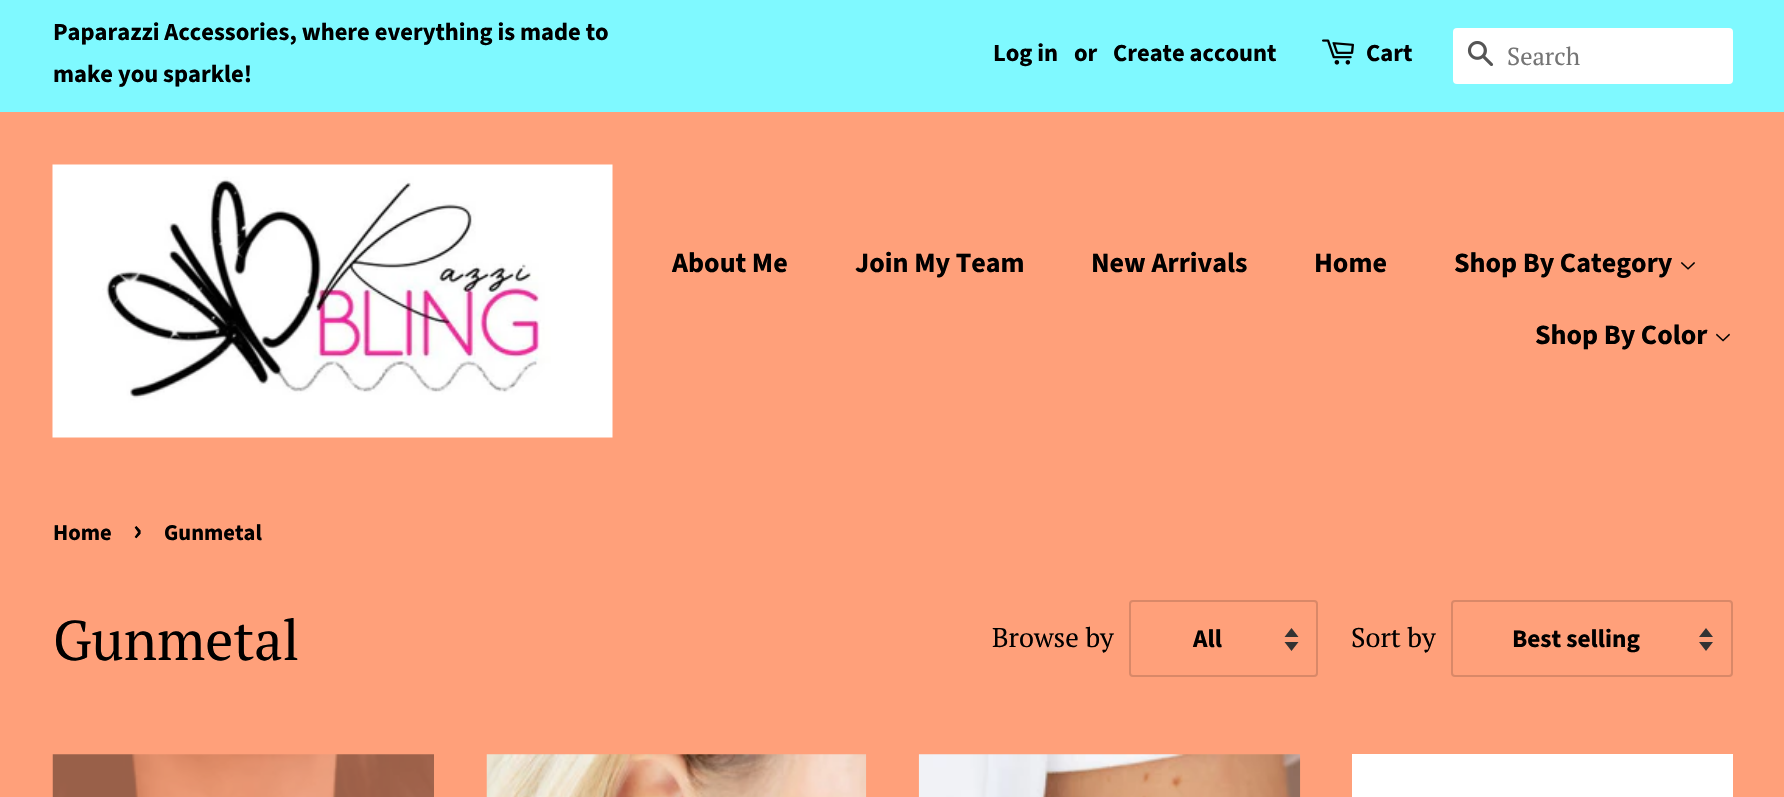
void draw(SkCanvas* canvas) {
  SkPaint paint;
  paint.setAntiAlias(true);
  auto face = [&](const char* family, int weight, float size, bool italic = false) {
    SkFontStyle style(weight, SkFontStyle::kNormal_Width,
      italic ? SkFontStyle::kItalic_Slant : SkFontStyle::kUpright_Slant);
    SkFont result(fontMgr->matchFamilyStyle(family, style), size);
    result.setSubpixel(true);
    return result;
  };
  auto paste = [&](const char* path, float x, float y, float w, float h) {
    auto image = SkImages::DeferredFromEncodedData(SkData::MakeFromFileName(path));
    canvas->drawImageRect(image, SkRect::MakeXYWH(x, y, w, h), SkSamplingOptions());
  };
  auto shape = [&](const char* data, bool evenOdd = false) {
    SkPath result = *SkParsePath::FromSVGString(data);
    if (evenOdd) result.setFillType(SkPathFillType::kEvenOdd);
    return result;
  };
  canvas->clear(0xffffa07a);
  paint.setColor(0xff7ff9ff);
  canvas->drawRect(SkRect::MakeXYWH(0, 0, 1784, 112), paint);
  paste("img/1.png", 1322, 39, 32, 26);
  paint.setColor(0xffffffff);
  canvas->drawRoundRect(SkRect::MakeXYWH(1453, 28, 280, 56), 4, 4, paint);
  paste("img/2.png", 1467, 41, 27, 25);
  paste("img/3.png", 52, 164, 561, 274);
  paste("img/4.png", 1681, 262, 14, 8);
  paste("img/5.png", 1716, 333, 14, 9);
  paint.setColor(0xff333333);
  canvas->drawPath(shape("M1284.5 642L1291.5 651L1298.5 642ZM1291.5 628L1284.5 637H1298.5Z"), paint);
  paint.setStroke(true);
  paint.setStrokeWidth(2);
  paint.setColor(0xffd98868);
  canvas->drawRoundRect(SkRect::MakeXYWH(1130, 601, 187, 75), 3, 3, paint);
  paint.setStroke(false);
  paint.setColor(0xff333333);
  canvas->drawPath(shape("M1699 642L1706 651L1713 642ZM1706 628L1699 637H1713Z"), paint);
  paint.setStroke(true);
  paint.setColor(0xffd98868);
  canvas->drawRoundRect(SkRect::MakeXYWH(1452, 601, 280, 75), 3, 3, paint);
  paste("img/6.png", 52, 754, 382, 43);
  paste("img/7.png", 486, 754, 381, 43);
  paste("img/8.png", 918, 754, 383, 43);
  paint.setStroke(false);
  paint.setColor(0xffffffff);
  canvas->drawRect(SkRect::MakeXYWH(1352, 754, 381, 43), paint);
  auto f0 = face("Source Sans Pro", 700, 24.5f);
  paint.setColor(0xff000000);
  {
    const struct { const char* s; float x, y; } items[] = {
      {"Paparazzi Accessories, where everything is made to", 53, 40},
      {"make you sparkle!", 53, 82},
      {"Log in", 993, 61},
      {"or", 1074, 61},
      {"Create account", 1113, 61},
      {"Cart", 1366, 61},
    };
    for (auto [s, x, y] : items) {
      canvas->drawString(s, x, y, f0, paint);
    }
  }
  auto f1 = face("PT Serif", 400, 24.5f);
  paint.setColor(0xff757575);
  canvas->drawString("Search", 1507, 65, f1, paint);
  auto f2 = face("Source Sans Pro", 700, 28);
  paint.setColor(0xff000000);
  {
    const struct { const char* s; float x, y; } items[] = {
      {"About Me", 672, 272},
      {"Join My Team", 855, 272},
      {"New Arrivals", 1091, 272},
      {"Home", 1314, 272},
      {"Shop By Category", 1454, 272},
      {"Shop By Color", 1535, 344},
    };
    for (auto [s, x, y] : items) {
      canvas->drawString(s, x, y, f2, paint);
    }
  }
  auto f3 = face("Source Sans Pro", 700, 22.5f);
  canvas->drawString("Home", 53, 540, f3, paint);
  auto f4 = face("Source Sans Pro", 700, 31);
  canvas->drawString("›", 133, 540, f4, paint);
  canvas->drawString("Gunmetal", 164, 540, f3, paint);
  auto f5 = face("PT Serif", 400, 56);
  canvas->drawString("Gunmetal", 53, 660, f5, paint);
  auto f6 = face("PT Serif", 400, 27);
  canvas->drawString("Browse by", 992, 647, f6, paint);
  auto f7 = face("Source Sans Pro", 700, 25.25f);
  canvas->drawString("All", 1193, 647, f7, paint);
  canvas->drawString("Sort by", 1351, 647, f6, paint);
  canvas->drawString("Best selling", 1512, 647, f7, paint);
}
